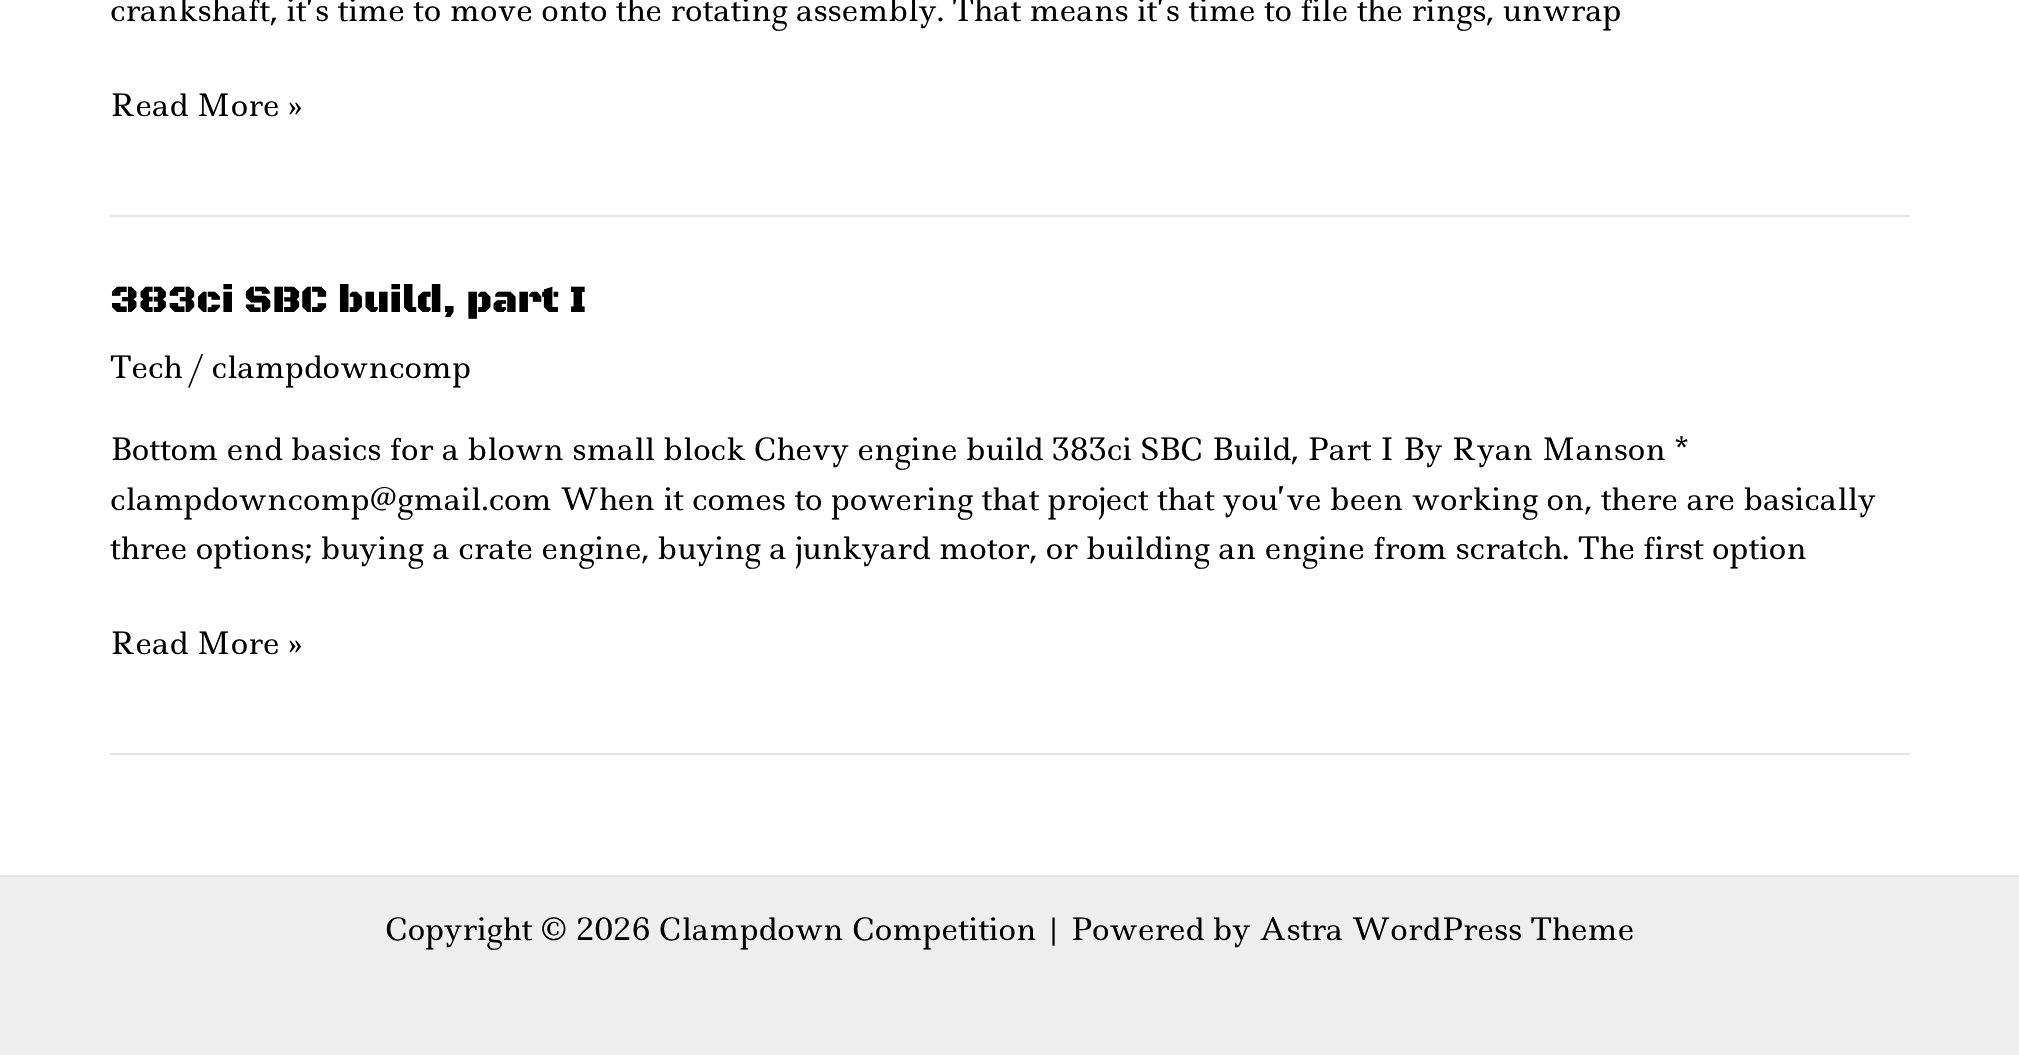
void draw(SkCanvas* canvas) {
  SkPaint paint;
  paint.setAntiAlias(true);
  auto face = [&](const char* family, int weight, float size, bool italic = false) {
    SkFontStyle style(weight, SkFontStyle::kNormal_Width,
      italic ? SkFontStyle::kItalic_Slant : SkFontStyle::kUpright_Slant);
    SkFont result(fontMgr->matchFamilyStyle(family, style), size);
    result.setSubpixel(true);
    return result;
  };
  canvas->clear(0xffffffff);
  {
    const struct { float x, y, w, h; SkColor color; } items[] = {
      {110, 215, 1800, 2, 0xffe5e5e5},
      {110, 753, 1800, 2, 0xffe5e5e5},
      {0, 877, 2019, 178, 0xffeeeeee},
      {0, 875, 2019, 2, 0xffe5e5e5},
    };
    for (auto [x, y, w, h, color] : items) {
      paint.setColor(color);
      canvas->drawRect(SkRect::MakeXYWH(x, y, w, h), paint);
    }
  }
  auto f0 = face("Ledger", 400, 30);
  paint.setColor(0xff000000);
  canvas->drawString("crankshaft, it’s time to move onto the rotating assembly. That means it’s time to file the rings, unwrap", 110, 21, f0, paint);
  canvas->drawString("Read More »", 110, 116, f0, paint);
  auto f1 = face("Black Ops One", 900, 39);
  canvas->drawString("383ci SBC build, part I", 110, 312, f1, paint);
  {
    const struct { const char* s; float x, y; } items[] = {
      {"Tech / clampdowncomp", 110, 378},
      {"Bottom end basics for a blown small block Chevy engine build 383ci SBC Build, Part I By Ryan Manson *", 110, 460},
      {"clampdowncomp@gmail.com When it comes to powering that project that you’ve been working on, there are basically", 110, 510},
      {"three options; buying a crate engine, buying a junkyard motor, or building an engine from scratch. The first option", 110, 559},
      {"Read More »", 110, 654},
      {"Copyright © 2026 Clampdown Competition | Powered by Astra WordPress Theme", 385, 940},
    };
    for (auto [s, x, y] : items) {
      canvas->drawString(s, x, y, f0, paint);
    }
  }
}
